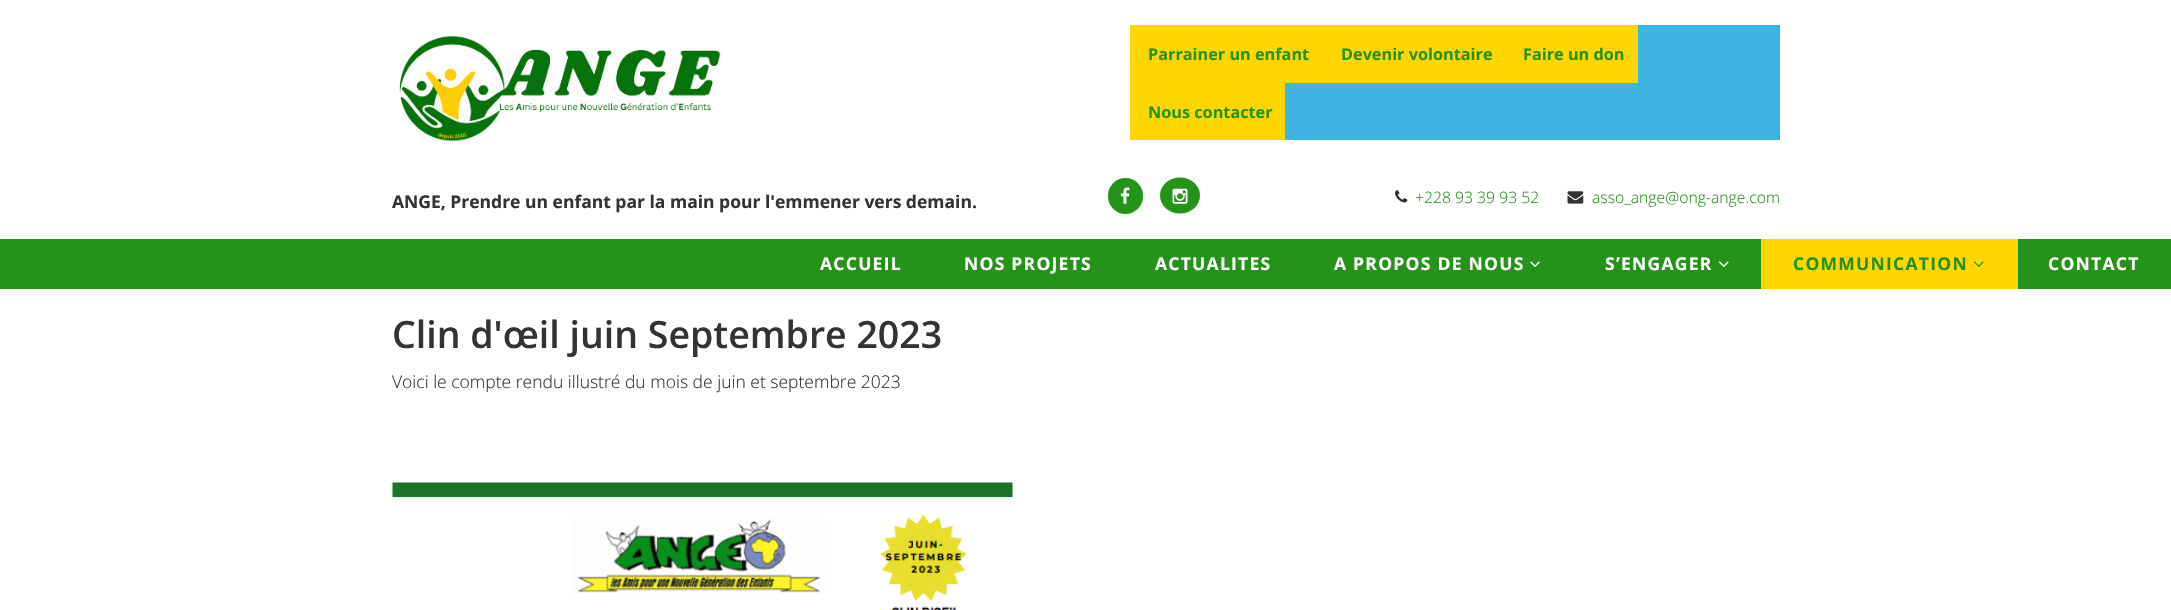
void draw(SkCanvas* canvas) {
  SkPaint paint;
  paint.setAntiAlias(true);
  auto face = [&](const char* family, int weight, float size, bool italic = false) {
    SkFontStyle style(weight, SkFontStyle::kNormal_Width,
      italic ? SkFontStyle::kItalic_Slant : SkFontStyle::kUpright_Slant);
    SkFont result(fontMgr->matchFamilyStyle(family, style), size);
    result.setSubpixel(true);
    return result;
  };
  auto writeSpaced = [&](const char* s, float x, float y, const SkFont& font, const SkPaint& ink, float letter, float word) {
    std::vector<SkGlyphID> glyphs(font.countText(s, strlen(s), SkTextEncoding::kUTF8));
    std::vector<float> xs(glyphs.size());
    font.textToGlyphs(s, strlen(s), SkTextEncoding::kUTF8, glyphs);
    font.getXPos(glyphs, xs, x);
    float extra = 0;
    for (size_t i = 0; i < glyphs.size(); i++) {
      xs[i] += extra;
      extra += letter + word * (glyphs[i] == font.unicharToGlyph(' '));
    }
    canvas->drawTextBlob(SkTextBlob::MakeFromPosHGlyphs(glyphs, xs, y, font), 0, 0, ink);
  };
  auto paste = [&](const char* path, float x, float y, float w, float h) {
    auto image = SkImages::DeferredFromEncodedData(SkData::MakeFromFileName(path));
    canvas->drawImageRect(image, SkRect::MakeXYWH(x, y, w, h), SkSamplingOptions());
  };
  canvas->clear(0xffffffff);
  paste("img/1.png", 399, 35, 322, 107);
  {
    const struct { float x, y, w, h; SkColor color; } items[] = {
      {1285, 25, 495, 115, 0xff3eb4e3},
      {1130, 25, 508, 58, 0xffffd700},
      {1130, 83, 155, 57, 0xffffd700},
    };
    for (auto [x, y, w, h, color] : items) {
      paint.setColor(color);
      canvas->drawRect(SkRect::MakeXYWH(x, y, w, h), paint);
    }
  }
  paint.setColor(0xff259319);
  canvas->drawRoundRect(SkRect::MakeXYWH(1108, 178, 35, 36), 17.5f, 17.5f, paint);
  paste("img/2.png", 1120, 187, 10, 17);
  canvas->drawOval(SkRect::MakeXYWH(1160, 177.5f, 40, 36), paint);
  paste("img/3.png", 1172, 188, 16, 16);
  paste("img/4.png", 1395, 190, 13, 13);
  paste("img/5.png", 1567, 191, 17, 13);
  canvas->drawRect(SkRect::MakeXYWH(0, 239, 2171, 50), paint);
  paste("img/6.png", 1530, 261, 10, 6);
  paste("img/7.png", 1718, 261, 11, 6);
  paint.setColor(0xffffd700);
  canvas->drawRect(SkRect::MakeXYWH(1761, 239, 257, 50), paint);
  paste("img/8.png", 1973, 261, 11, 6);
  paste("img/9.png", 392, 482, 621, 128);
  auto f0 = face("Open Sans", 700, 16.25f);
  paint.setColor(0xff259319);
  {
    const struct { const char* s; float x, y; } items[] = {
      {"Parrainer un enfant", 1148, 60},
      {"Devenir volontaire", 1341, 60},
      {"Faire un don", 1523, 60},
      {"Nous contacter", 1148, 118},
    };
    for (auto [s, x, y] : items) {
      canvas->drawString(s, x, y, f0, paint);
    }
  }
  auto f1 = face("Open Sans", 700, 17.5f);
  paint.setColor(0xff333333);
  canvas->drawString("ANGE, Prendre un enfant par la main pour l'emmener vers demain.", 392, 208, f1, paint);
  auto f2 = face("Open Sans", 300, 15.75f);
  paint.setColor(0xff259319);
  canvas->drawString("+228 93 39 93 52", 1415, 203, f2, paint);
  canvas->drawString("asso_ange@ong-ange.com", 1592, 203, f2, paint);
  paint.setColor(0xffffffff);
  {
    const struct { const char* s; float x, y; } items[] = {
      {"ACCUEIL", 820, 270},
      {"NOS PROJETS", 964, 270},
      {"ACTUALITES", 1155, 270},
      {"A PROPOS DE NOUS", 1334, 270},
      {"S’ENGAGER", 1605, 270},
    };
    for (auto [s, x, y] : items) {
      writeSpaced(s, x, y, f1, paint, 1.25f, 0);
    }
  }
  paint.setColor(0xff259319);
  writeSpaced("COMMUNICATION", 1793, 270, f1, paint, 1.25f, 0);
  paint.setColor(0xffffffff);
  writeSpaced("CONTACT", 2048, 270, f1, paint, 1.25f, 0);
  auto f3 = face("Open Sans", 600, 37.5f);
  paint.setColor(0xff333333);
  canvas->drawString("Clin d'œil juin Septembre 2023", 392, 348, f3, paint);
  auto f4 = face("Open Sans", 300, 17.5f);
  canvas->drawString("Voici le compte rendu illustré du mois de juin et septembre 2023", 392, 388, f4, paint);
}
